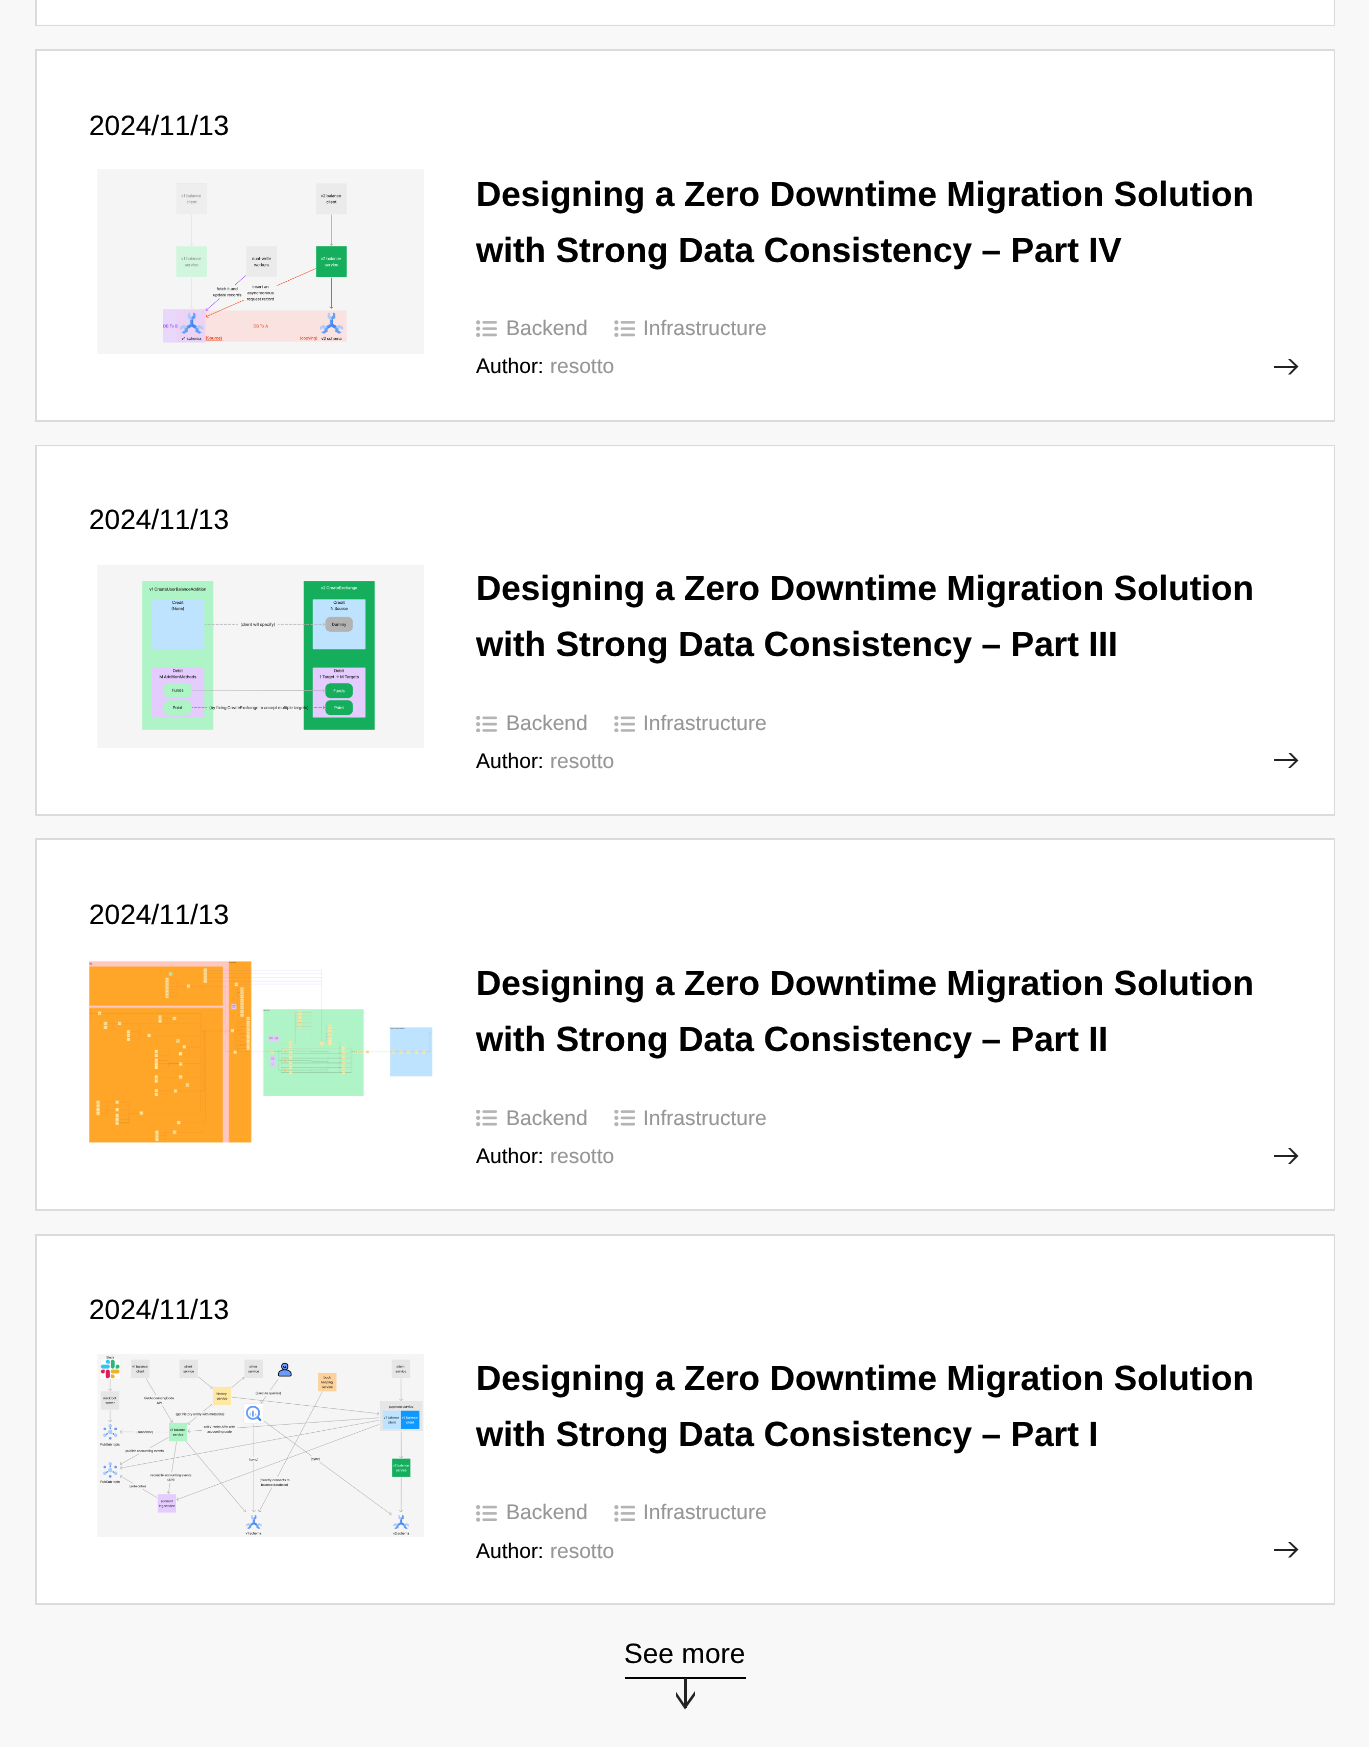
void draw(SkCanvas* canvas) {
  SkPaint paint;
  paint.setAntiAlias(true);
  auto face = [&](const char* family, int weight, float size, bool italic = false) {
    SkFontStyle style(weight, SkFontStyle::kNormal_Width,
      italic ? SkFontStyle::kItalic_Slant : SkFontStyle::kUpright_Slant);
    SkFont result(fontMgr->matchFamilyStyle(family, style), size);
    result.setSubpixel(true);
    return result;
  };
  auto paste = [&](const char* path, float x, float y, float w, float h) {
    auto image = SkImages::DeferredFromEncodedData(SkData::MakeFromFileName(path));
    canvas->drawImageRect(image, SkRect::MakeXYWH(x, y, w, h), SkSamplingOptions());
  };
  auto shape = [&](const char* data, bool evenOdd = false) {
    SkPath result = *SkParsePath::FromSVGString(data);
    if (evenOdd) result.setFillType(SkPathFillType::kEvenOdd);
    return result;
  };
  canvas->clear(0xfff8f8f8);
  paint.setStroke(true);
  paint.setStrokeWidth(2);
  paint.setColor(0xffdbdbdb);
  canvas->drawRect(SkRect::MakeXYWH(36, -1, 1298, 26), paint);
  paint.setStroke(false);
  paint.setColor(0xe6ffffff);
  canvas->drawRect(SkRect::MakeXYWH(37, 0, 1297, 25), paint);
  paint.setStroke(true);
  paint.setColor(0xffdbdbdb);
  canvas->drawRect(SkRect::MakeXYWH(36, 50, 1298, 371), paint);
  paint.setStroke(false);
  paint.setColor(0xe6ffffff);
  canvas->drawRect(SkRect::MakeXYWH(37, 51, 1297, 369), paint);
  paste("img/1.png", 97, 169, 327, 185);
  paste("img/2.png", 476, 320, 21, 17);
  paste("img/3.png", 614, 320, 21, 17);
  paint.setColor(0xff222222);
  canvas->drawPath(shape("M1290.5 374.5H1288L1295.5 366.5L1288 359H1290.5L1298.5 366.5Z"), paint);
  canvas->drawRect(SkRect::MakeXYWH(1274, 366, 23, 2), paint);
  paint.setStroke(true);
  paint.setColor(0xffdbdbdb);
  canvas->drawRect(SkRect::MakeXYWH(36, 446, 1298, 369), paint);
  paint.setStroke(false);
  paint.setColor(0xe6ffffff);
  canvas->drawRect(SkRect::MakeXYWH(37, 446, 1297, 368), paint);
  paste("img/4.png", 97, 565, 327, 183);
  paste("img/5.png", 476, 716, 21, 16);
  paste("img/6.png", 614, 716, 21, 16);
  canvas->save();
  canvas->clipRect(SkRect::MakeXYWH(1274, 753, 25, 15));
  paint.setColor(0xff222222);
  canvas->drawPath(shape("M1290.5 768H1288L1295.5 760.5L1288 752.5H1290.5L1298.5 760.5Z"), paint);
  canvas->restore();
  canvas->drawRect(SkRect::MakeXYWH(1274, 759, 23, 2), paint);
  paint.setStroke(true);
  paint.setColor(0xffdbdbdb);
  canvas->drawRect(SkRect::MakeXYWH(36, 839, 1298, 371), paint);
  paint.setStroke(false);
  paint.setColor(0xe6ffffff);
  canvas->drawRect(SkRect::MakeXYWH(37, 840, 1297, 369), paint);
  paste("img/7.png", 89, 961, 344, 182);
  paste("img/8.png", 476, 1110, 21, 17);
  paste("img/9.png", 614, 1110, 21, 17);
  paint.setColor(0xff222222);
  canvas->drawPath(shape("M1290.5 1164H1288L1295.5 1156L1288 1148H1290.5L1298.5 1156Z"), paint);
  canvas->drawRect(SkRect::MakeXYWH(1274, 1155, 23, 2), paint);
  paint.setStroke(true);
  paint.setColor(0xffdbdbdb);
  canvas->drawRect(SkRect::MakeXYWH(36, 1235, 1298, 369), paint);
  paint.setStroke(false);
  paint.setColor(0xe6ffffff);
  canvas->drawRect(SkRect::MakeXYWH(37, 1236, 1297, 367), paint);
  paste("img/10.png", 97, 1354, 327, 183);
  paste("img/11.png", 476, 1505, 21, 17);
  paste("img/12.png", 614, 1505, 21, 17);
  paint.setColor(0xff222222);
  canvas->drawPath(shape("M1290.5 1557.5H1288L1295.5 1549.5L1288 1542H1290.5L1298.5 1549.5Z"), paint);
  canvas->drawRect(SkRect::MakeXYWH(1274, 1549, 23, 2), paint);
  paint.setColor(0xff000000);
  canvas->drawRect(SkRect::MakeXYWH(625, 1677, 121, 2), paint);
  canvas->save();
  canvas->clipRect(SkRect::MakeXYWH(676, 1678, 19, 32));
  paint.setColor(0xff222222);
  canvas->drawPath(shape("M675.5 1695.5V1691L685 1705L695 1691V1695.5L685 1709.5Z"), paint);
  canvas->restore();
  canvas->drawRect(SkRect::MakeXYWH(684, 1678, 3, 30), paint);
  auto f0 = face("Liberation Sans", 400, 28);
  paint.setColor(0xff000000);
  canvas->drawString("2024/11/13", 89, 135, f0, paint);
  auto f1 = face("Liberation Sans", 700, 35);
  canvas->drawString("Designing a Zero Downtime Migration Solution", 476, 206, f1, paint);
  canvas->drawString("with Strong Data Consistency – Part IV", 476, 262, f1, paint);
  auto f2 = face("Liberation Sans", 400, 21);
  paint.setColor(0xff969696);
  canvas->drawString("Backend", 506, 335, f2, paint);
  canvas->drawString("Infrastructure", 643, 335, f2, paint);
  paint.setColor(0xff000000);
  canvas->drawString("Author:", 476, 373, f2, paint);
  paint.setColor(0xff969696);
  canvas->drawString("resotto", 550, 373, f2, paint);
  paint.setColor(0xff000000);
  canvas->drawString("2024/11/13", 89, 529, f0, paint);
  canvas->drawString("Designing a Zero Downtime Migration Solution", 476, 600, f1, paint);
  canvas->drawString("with Strong Data Consistency – Part III", 476, 656, f1, paint);
  paint.setColor(0xff969696);
  canvas->drawString("Backend", 506, 730, f2, paint);
  canvas->drawString("Infrastructure", 643, 730, f2, paint);
  paint.setColor(0xff000000);
  canvas->drawString("Author:", 476, 768, f2, paint);
  paint.setColor(0xff969696);
  canvas->drawString("resotto", 550, 768, f2, paint);
  paint.setColor(0xff000000);
  canvas->drawString("2024/11/13", 89, 924, f0, paint);
  canvas->drawString("Designing a Zero Downtime Migration Solution", 476, 995, f1, paint);
  canvas->drawString("with Strong Data Consistency – Part II", 476, 1051, f1, paint);
  paint.setColor(0xff969696);
  canvas->drawString("Backend", 506, 1125, f2, paint);
  canvas->drawString("Infrastructure", 643, 1125, f2, paint);
  paint.setColor(0xff000000);
  canvas->drawString("Author:", 476, 1163, f2, paint);
  paint.setColor(0xff969696);
  canvas->drawString("resotto", 550, 1163, f2, paint);
  paint.setColor(0xff000000);
  canvas->drawString("2024/11/13", 89, 1319, f0, paint);
  canvas->drawString("Designing a Zero Downtime Migration Solution", 476, 1390, f1, paint);
  canvas->drawString("with Strong Data Consistency – Part I", 476, 1446, f1, paint);
  paint.setColor(0xff969696);
  canvas->drawString("Backend", 506, 1519, f2, paint);
  canvas->drawString("Infrastructure", 643, 1519, f2, paint);
  paint.setColor(0xff000000);
  canvas->drawString("Author:", 476, 1558, f2, paint);
  paint.setColor(0xff969696);
  canvas->drawString("resotto", 550, 1558, f2, paint);
  paint.setColor(0xff000000);
  canvas->drawString("See more", 624, 1663, f0, paint);
}
